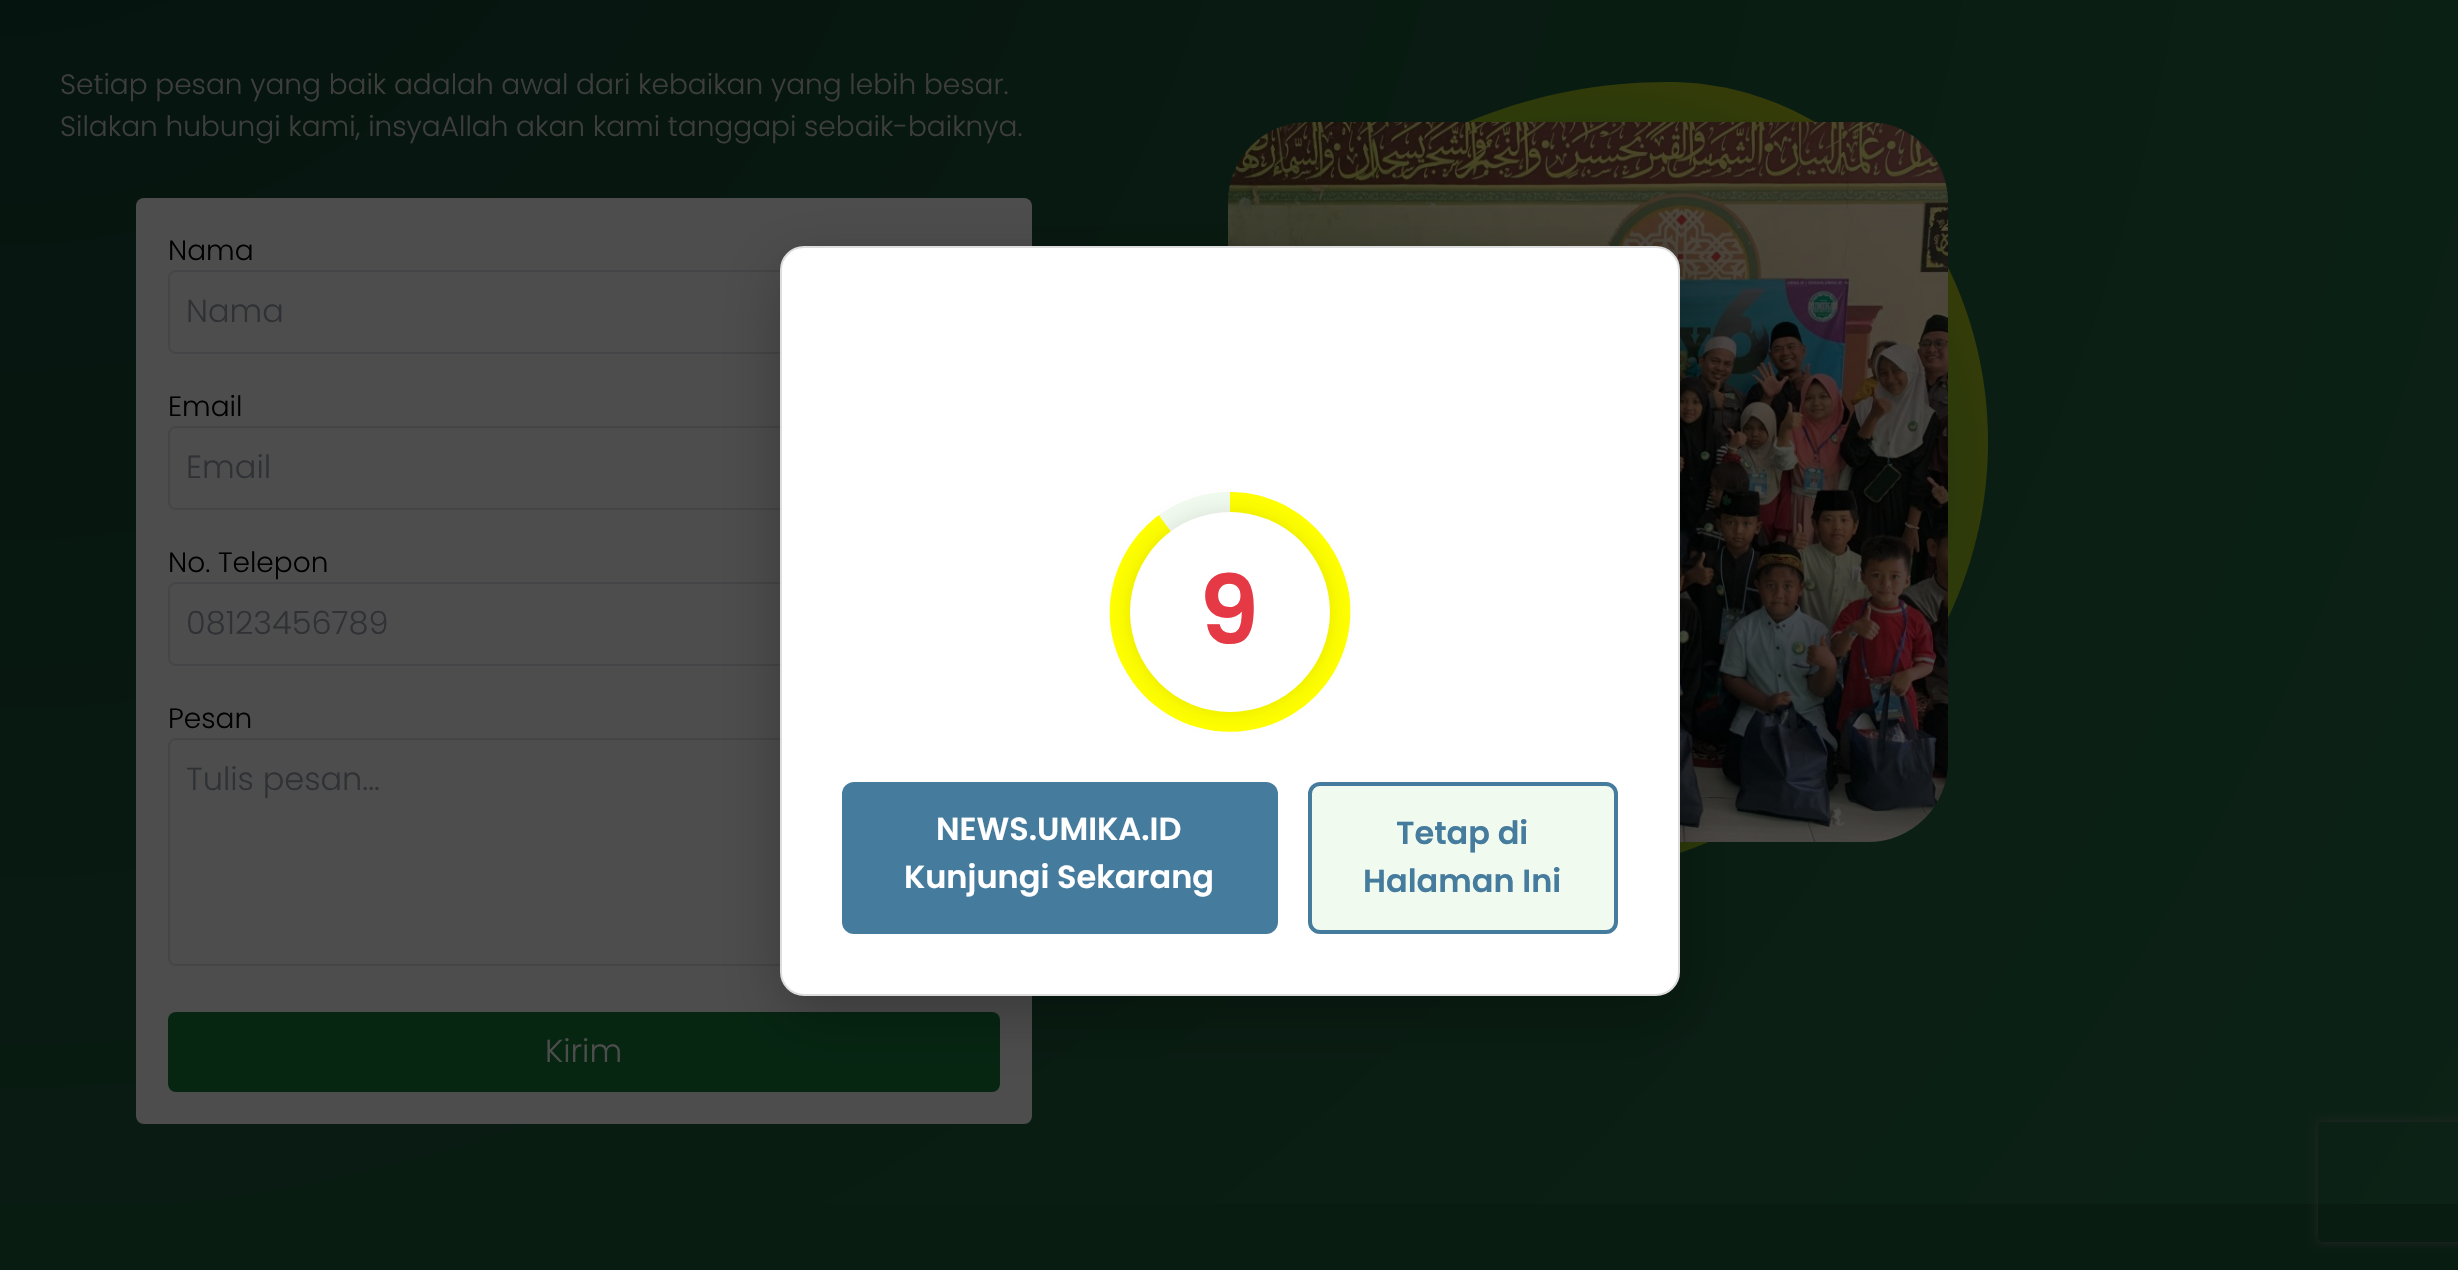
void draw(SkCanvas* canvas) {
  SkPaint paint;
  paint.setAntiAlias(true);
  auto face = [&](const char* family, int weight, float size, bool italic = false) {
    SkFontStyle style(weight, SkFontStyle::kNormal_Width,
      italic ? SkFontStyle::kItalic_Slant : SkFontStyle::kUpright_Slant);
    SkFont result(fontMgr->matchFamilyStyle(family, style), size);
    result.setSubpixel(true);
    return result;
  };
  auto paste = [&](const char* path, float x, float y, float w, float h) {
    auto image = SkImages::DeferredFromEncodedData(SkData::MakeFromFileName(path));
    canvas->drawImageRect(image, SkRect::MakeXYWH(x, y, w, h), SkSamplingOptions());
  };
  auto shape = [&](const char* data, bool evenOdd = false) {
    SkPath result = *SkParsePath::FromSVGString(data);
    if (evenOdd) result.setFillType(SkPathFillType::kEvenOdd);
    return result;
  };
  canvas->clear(0xffffffff);
  {
    const SkColor colors[] = {0xff05120e, 0xff091c12, 0xff0e2417};
    const float stops[] = {0, 0.5f, 1};
    paint.setShader(SkGradientShader::MakeRadial({0, -386}, 3369, colors, stops, 3, SkTileMode::kClamp));
    paint.setAlpha(255);
  }
  canvas->drawRect(SkRect::MakeXYWH(0, 0, 2458, 1204), paint);
  paint.setShader(nullptr);
  paint.setColor(0xff4d4d4d);
  canvas->drawRoundRect(SkRect::MakeXYWH(136, 198, 896, 926), 8, 8, paint);
  paint.setStroke(true);
  paint.setStrokeWidth(2);
  paint.setColor(0xff454547);
  canvas->drawRoundRect(SkRect::MakeXYWH(169, 271, 830, 82), 7, 7, paint);
  canvas->drawRoundRect(SkRect::MakeXYWH(169, 427, 830, 82), 7, 7, paint);
  canvas->drawRoundRect(SkRect::MakeXYWH(169, 583, 830, 82), 7, 7, paint);
  canvas->drawRoundRect(SkRect::MakeXYWH(169, 739, 830, 226), 7, 7, paint);
  paint.setStroke(false);
  paint.setColor(0xff062612);
  canvas->drawRoundRect(SkRect::MakeXYWH(168, 1012, 832, 80), 8, 8, paint);
  {
    const SkColor colors[] = {0xff0c3215, 0xff4d4100};
    const float stops[] = {0.3f, 1};
    paint.setShader(SkGradientShader::MakeRadial({1588, 482}, 566, colors, stops, 2, SkTileMode::kClamp));
    paint.setAlpha(255);
  }
  canvas->drawPath(shape("M1668 82C1845 82 1988 243 1988 442C1988 685 1773 882 1508 882C1331 882 1188 721 1188 522C1188 279 1403 82 1668 82Z"), paint);
  paste("img/1.png", 1228, 122, 720, 720);
  paint.setShader(nullptr);
  paint.setColor(0x40000000);
  paint.setMaskFilter(SkMaskFilter::MakeBlur(kNormal_SkBlurStyle, 30));
  canvas->drawRoundRect(SkRect::MakeXYWH(780, 266, 900, 750), 24, 24, paint);
  paint.setMaskFilter(nullptr);
  paint.setColor(0xffffffff);
  canvas->drawRoundRect(SkRect::MakeXYWH(781, 247, 898, 748), 23, 23, paint);
  paint.setStroke(true);
  paint.setColor(0xffdddddd);
  canvas->drawRoundRect(SkRect::MakeXYWH(781, 247, 898, 748), 23, 23, paint);
  paint.setStroke(false);
  paint.setColor(0xffffff00);
  canvas->drawPath(shape("M1230 612V492C1289 492 1339 535 1349 593C1358 652 1323 708 1267 726C1211 744 1150 719 1123 666C1096 614 1112 550 1159 515Z"), paint);
  paint.setColor(0xfff1faee);
  canvas->drawPath(shape("M1230 612L1159 515C1180 500 1205 492 1230 492Z"), paint);
  paint.setColor(0x1a000000);
  paint.setMaskFilter(SkMaskFilter::MakeBlur(kNormal_SkBlurStyle, 10));
  canvas->drawRoundRect(SkRect::MakeXYWH(1130, 512, 200, 200), 100, 100, paint);
  paint.setMaskFilter(nullptr);
  paint.setColor(0xffffffff);
  canvas->drawCircle(1230, 612, 100, paint);
  paint.setColor(0xff457b9d);
  canvas->drawRoundRect(SkRect::MakeXYWH(842, 782, 436, 152), 12, 12, paint);
  paint.setColor(0xfff1faee);
  canvas->drawRoundRect(SkRect::MakeXYWH(1310, 784, 306, 148), 10, 10, paint);
  paint.setStroke(true);
  paint.setStrokeWidth(4);
  paint.setColor(0xff457b9d);
  canvas->drawRoundRect(SkRect::MakeXYWH(1310, 784, 306, 148), 10, 10, paint);
  paint.setStroke(false);
  paint.setColor(0xff091c12);
  canvas->drawRect(SkRect::MakeXYWH(0, 1204, 2458, 66), paint);
  canvas->save();
  canvas->clipPath(shape("M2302 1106H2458V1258H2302ZM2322 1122H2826C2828 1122 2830 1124 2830 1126V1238C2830 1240 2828 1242 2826 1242H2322C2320 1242 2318 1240 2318 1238V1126C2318 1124 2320 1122 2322 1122Z", true), true);
  paint.setColor(0xff262626);
  paint.setMaskFilter(SkMaskFilter::MakeBlur(kNormal_SkBlurStyle, 5));
  canvas->drawRoundRect(SkRect::MakeXYWH(2318, 1122, 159, 120), 4, 4, paint);
  paint.setMaskFilter(nullptr);
  canvas->restore();
  auto f0 = face("Poppins", 300, 28);
  paint.setColor(0xff3d3d3d);
  canvas->drawString("Setiap pesan yang baik adalah awal dari kebaikan yang lebih besar.", 60, 94, f0, paint);
  canvas->drawString("Silakan hubungi kami, insyaAllah akan kami tanggapi sebaik-baiknya.", 60, 136, f0, paint);
  paint.setColor(0xff000000);
  canvas->drawString("Nama", 168, 260, f0, paint);
  auto f1 = face("Poppins", 300, 32);
  paint.setColor(0xff2f3135);
  canvas->drawString("Nama", 186, 322, f1, paint);
  paint.setColor(0xff000000);
  canvas->drawString("Email", 168, 416, f0, paint);
  paint.setColor(0xff2f3135);
  canvas->drawString("Email", 186, 478, f1, paint);
  paint.setColor(0xff000000);
  canvas->drawString("No. Telepon", 168, 572, f0, paint);
  paint.setColor(0xff2f3135);
  canvas->drawString("08123456789", 186, 634, f1, paint);
  paint.setColor(0xff000000);
  canvas->drawString("Pesan", 168, 728, f0, paint);
  paint.setColor(0xff2f3135);
  canvas->drawString("Tulis pesan...", 186, 790, f1, paint);
  paint.setColor(0xff4d4d4d);
  canvas->drawString("Kirim", 545, 1062, f1, paint);
  auto f2 = face("Poppins", 600, 96);
  paint.setColor(0xffe63946);
  canvas->drawString("9", 1199, 644, f2, paint);
  auto f3 = face("Poppins", 600, 32);
  paint.setColor(0xffffffff);
  canvas->drawString("NEWS.UMIKA.ID", 936, 840, f3, paint);
  canvas->drawString("Kunjungi Sekarang", 904, 888, f3, paint);
  paint.setColor(0xff457b9d);
  canvas->drawString("Tetap di", 1396, 844, f3, paint);
  canvas->drawString("Halaman Ini", 1363, 892, f3, paint);
}
